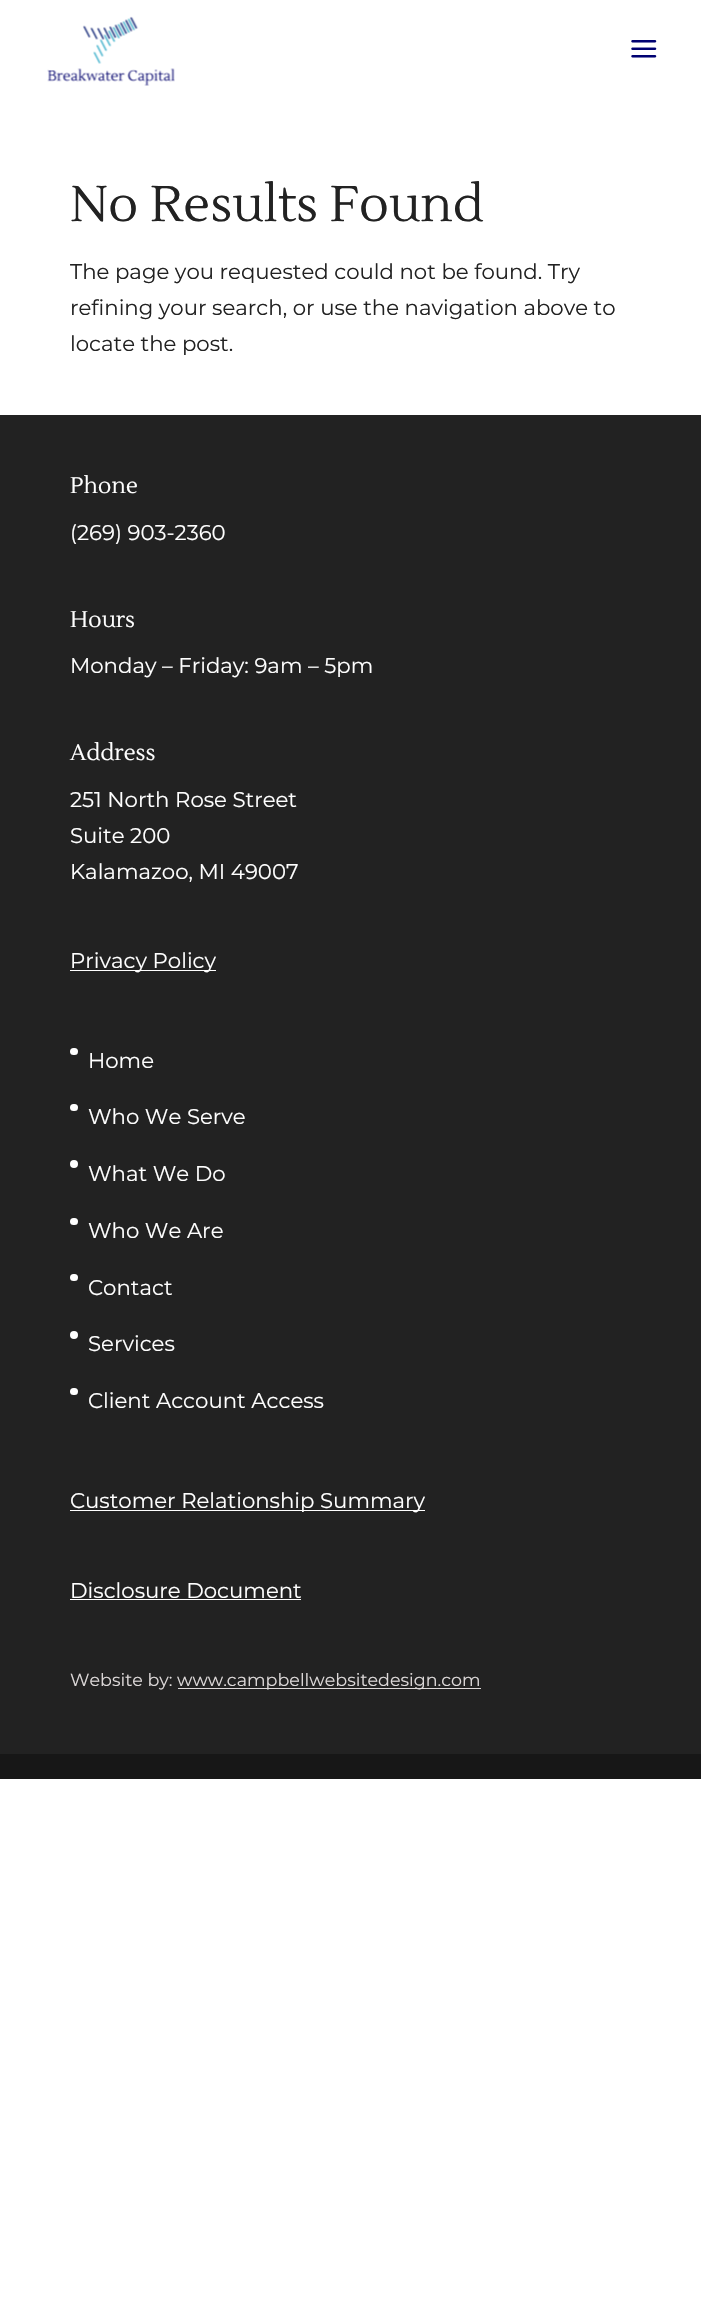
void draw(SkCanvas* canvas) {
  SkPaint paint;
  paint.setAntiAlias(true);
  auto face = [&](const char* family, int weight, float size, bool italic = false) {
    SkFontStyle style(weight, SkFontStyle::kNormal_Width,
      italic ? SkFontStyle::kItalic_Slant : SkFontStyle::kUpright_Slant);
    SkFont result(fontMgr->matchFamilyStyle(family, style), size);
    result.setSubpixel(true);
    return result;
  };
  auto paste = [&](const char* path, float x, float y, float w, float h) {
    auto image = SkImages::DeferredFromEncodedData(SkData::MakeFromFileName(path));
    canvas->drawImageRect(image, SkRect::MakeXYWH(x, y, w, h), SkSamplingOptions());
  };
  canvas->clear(0xffffffff);
  paste("img/1.png", 47, 16, 128, 70);
  paste("img/2.png", 631, 40, 26, 18);
  paint.setColor(0xff222222);
  canvas->drawRect(SkRect::MakeXYWH(0, 415, 701, 1339), paint);
  paint.setColor(0xffffffff);
  canvas->drawRect(SkRect::MakeXYWH(70, 970, 146, 1), paint);
  canvas->drawRoundRect(SkRect::MakeXYWH(70, 1048, 8, 7), 3.5f, 3.5f, paint);
  canvas->drawRoundRect(SkRect::MakeXYWH(70, 1104, 8, 7), 3.5f, 3.5f, paint);
  canvas->drawCircle(74, 1164, 4, paint);
  canvas->drawRoundRect(SkRect::MakeXYWH(70, 1218, 8, 7), 3.5f, 3.5f, paint);
  canvas->drawRoundRect(SkRect::MakeXYWH(70, 1274, 8, 7), 3.5f, 3.5f, paint);
  canvas->drawCircle(74, 1335, 4, paint);
  canvas->drawRoundRect(SkRect::MakeXYWH(70, 1388, 8, 7), 3.5f, 3.5f, paint);
  {
    const struct { float x, y, w, h; SkColor color; } items[] = {
      {70, 1510, 355, 1, 0xffffffff},
      {70, 1599, 231, 1, 0xffffffff},
      {178, 1688, 303, 1, 0xffddd9d9},
      {0, 1754, 701, 25, 0xff171717},
    };
    for (auto [x, y, w, h, color] : items) {
      paint.setColor(color);
      canvas->drawRect(SkRect::MakeXYWH(x, y, w, h), paint);
    }
  }
  auto f0 = face("Lustria", 400, 50);
  paint.setColor(0xff222222);
  canvas->drawString("No Results Found", 70, 221, f0, paint);
  auto f1 = face("Montserrat", 400, 21.25f);
  {
    const struct { const char* s; float x, y; } items[] = {
      {"The page you requested could not be found. Try", 70, 279},
      {"refining your search, or use the navigation above to", 70, 315},
      {"locate the post.", 70, 351},
    };
    for (auto [s, x, y] : items) {
      canvas->drawString(s, x, y, f1, paint);
    }
  }
  auto f2 = face("Lustria", 400, 22.5f);
  paint.setColor(0xffffffff);
  canvas->drawString("Phone", 70, 493, f2, paint);
  canvas->drawString("(269) 903-2360", 70, 540, f1, paint);
  canvas->drawString("Hours", 70, 627, f2, paint);
  canvas->drawString("Monday – Friday: 9am – 5pm", 70, 673, f1, paint);
  canvas->drawString("Address", 70, 760, f2, paint);
  {
    const struct { const char* s; float x, y; } items[] = {
      {"251 North Rose Street", 70, 807},
      {"Suite 200", 70, 843},
      {"Kalamazoo, MI 49007", 70, 879},
      {"Privacy Policy", 70, 968},
      {"Home", 88, 1068},
      {"Who We Serve", 88, 1124},
      {"What We Do", 88, 1181},
      {"Who We Are", 88, 1238},
      {"Contact", 88, 1295},
      {"Services", 88, 1351},
      {"Client Account Access", 88, 1408},
      {"Customer Relationship Summary", 70, 1508},
      {"Disclosure Document", 70, 1598},
    };
    for (auto [s, x, y] : items) {
      canvas->drawString(s, x, y, f1, paint);
    }
  }
  auto f3 = face("Montserrat", 400, 17.5f);
  paint.setColor(0xffddd9d9);
  canvas->drawString("Website by:", 70, 1686, f3, paint);
  canvas->drawString("www.campbellwebsitedesign.com", 177, 1686, f3, paint);
}
